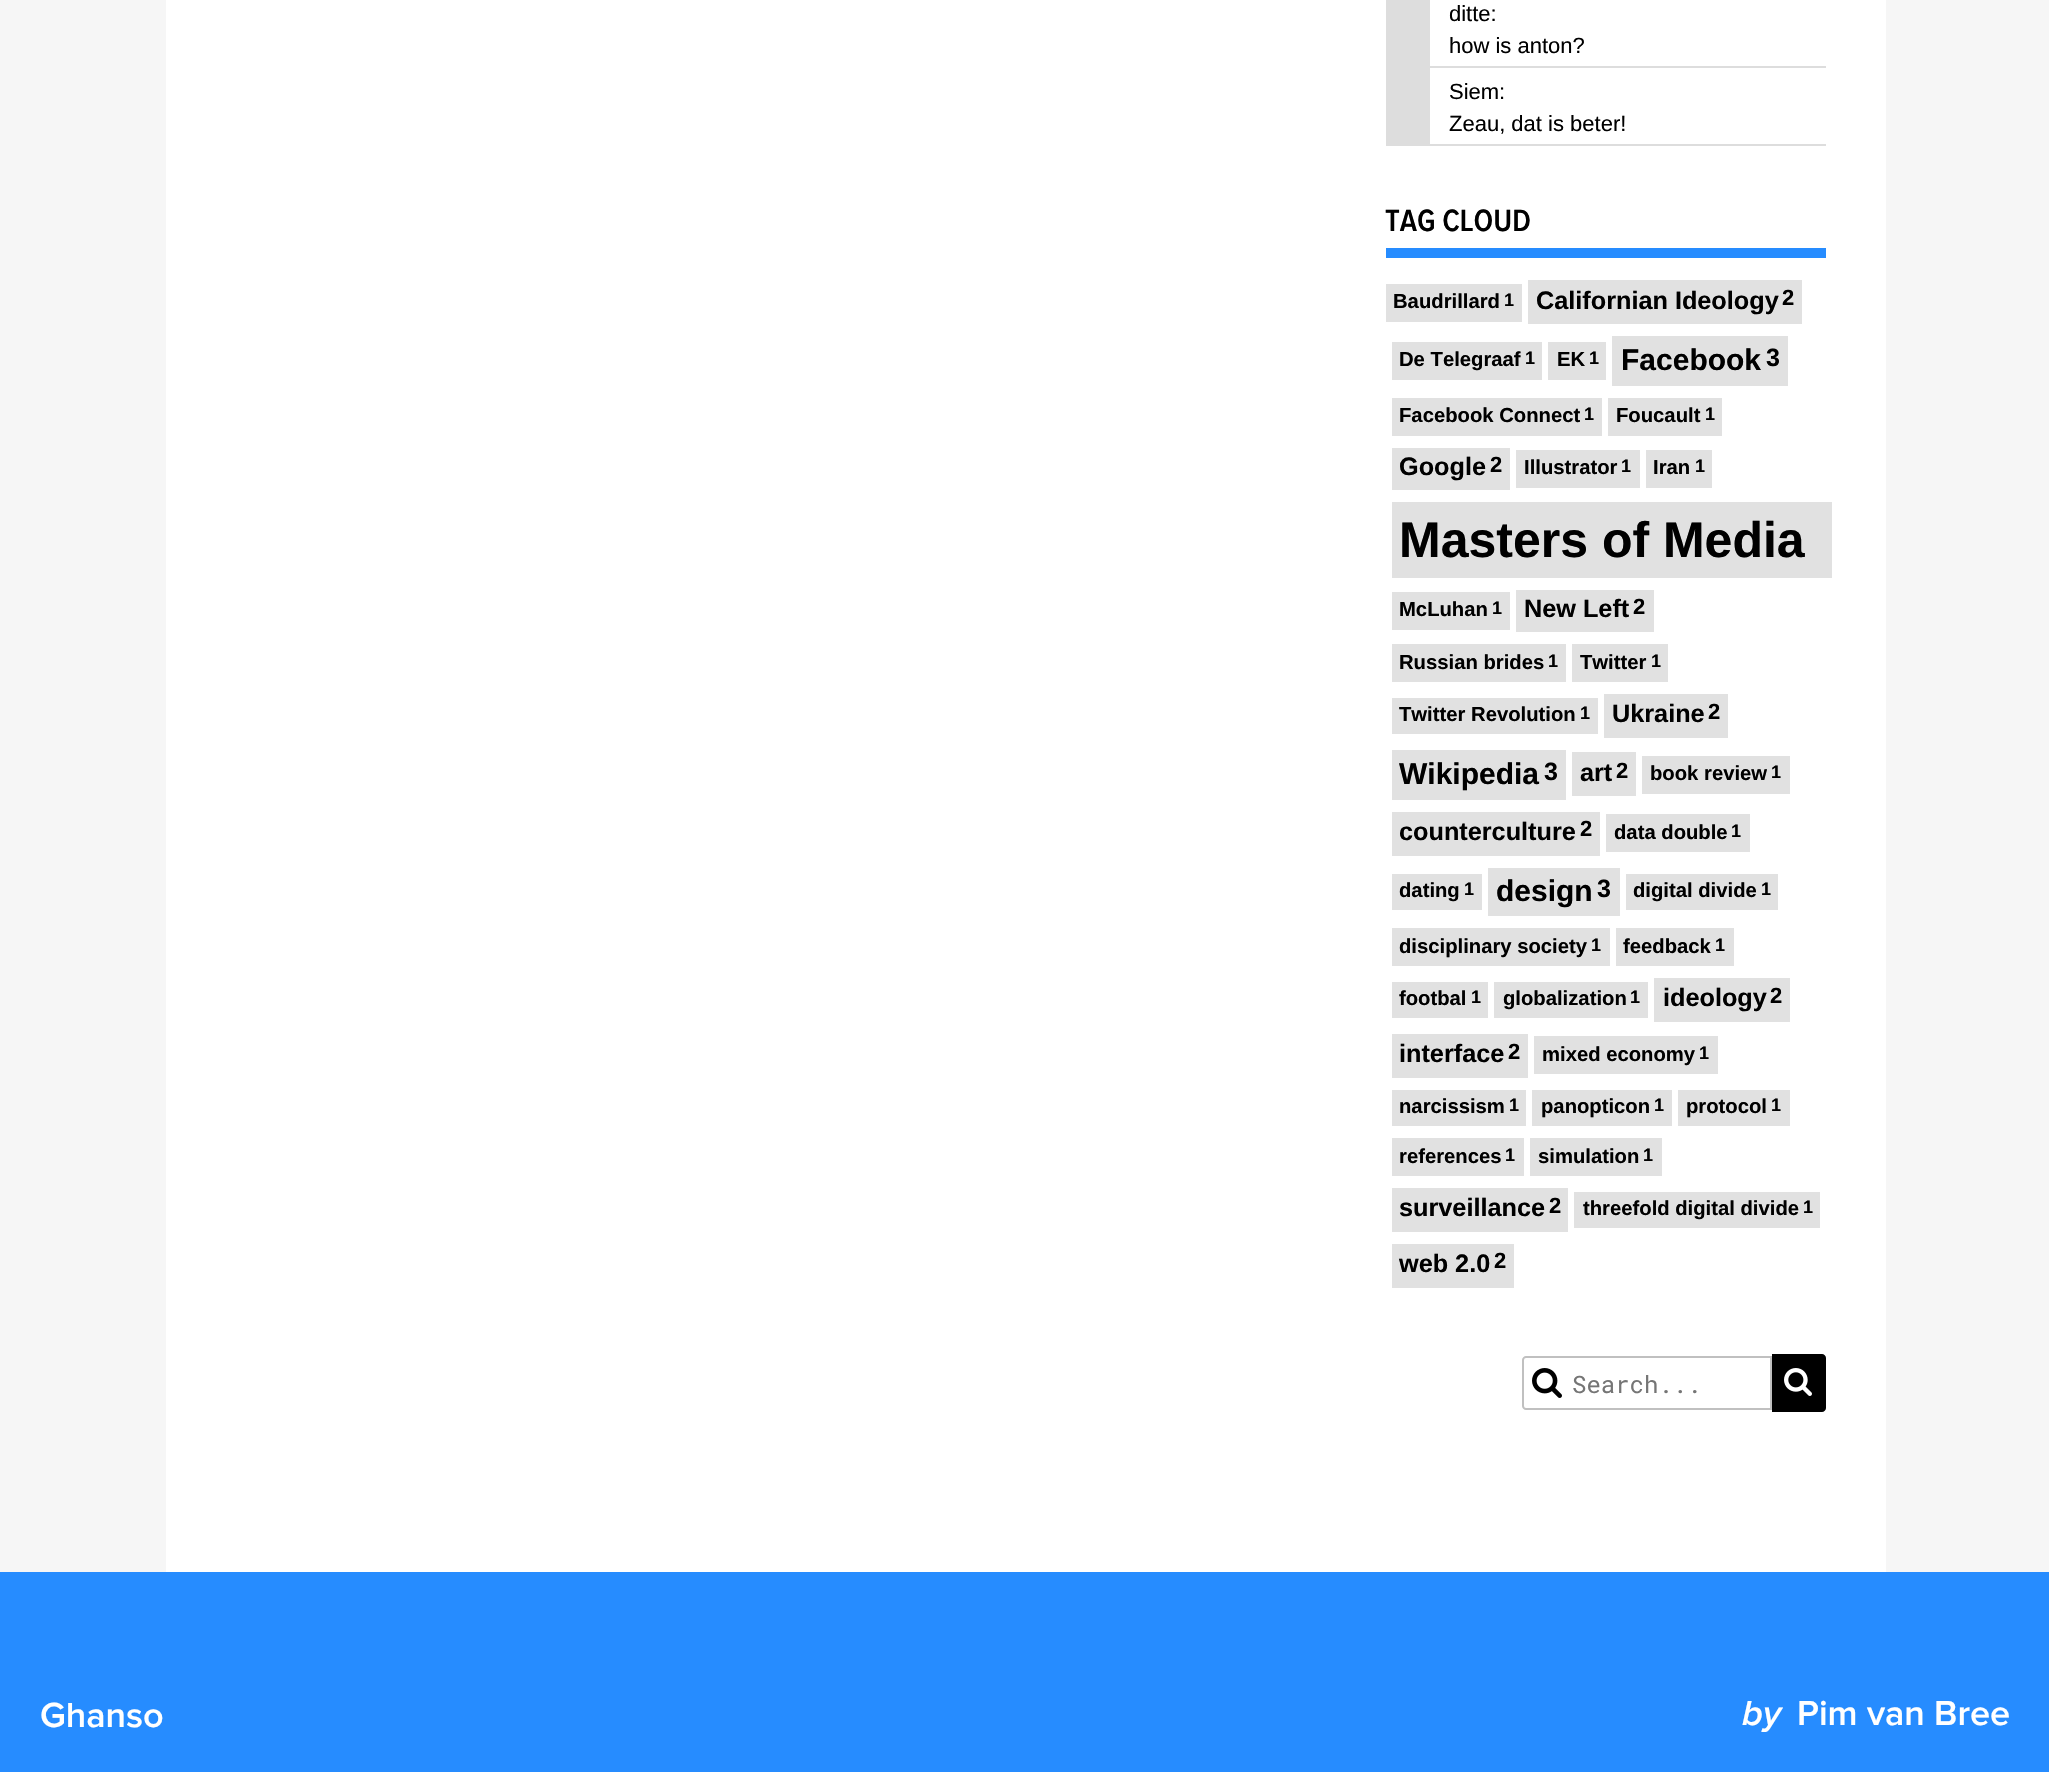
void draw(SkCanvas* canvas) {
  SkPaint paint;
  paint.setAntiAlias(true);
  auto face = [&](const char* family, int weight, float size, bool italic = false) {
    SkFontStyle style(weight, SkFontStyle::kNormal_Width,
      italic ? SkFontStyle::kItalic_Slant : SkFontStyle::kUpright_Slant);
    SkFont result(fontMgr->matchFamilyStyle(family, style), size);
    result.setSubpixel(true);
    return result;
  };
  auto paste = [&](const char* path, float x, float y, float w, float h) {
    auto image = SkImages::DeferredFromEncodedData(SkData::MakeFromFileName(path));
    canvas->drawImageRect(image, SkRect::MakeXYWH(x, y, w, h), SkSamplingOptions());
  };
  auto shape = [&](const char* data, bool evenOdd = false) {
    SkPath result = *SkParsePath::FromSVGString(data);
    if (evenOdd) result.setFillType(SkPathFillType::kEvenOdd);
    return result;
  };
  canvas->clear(0xfff6f6f6);
  {
    const struct { float x, y, w, h; SkColor color; } items[] = {
      {166, 0, 1720, 1572, 0xffffffff},
      {1386, 66, 440, 2, 0xffdddddd},
      {1386, 0, 44, 66, 0xffdddddd},
      {1386, 144, 440, 2, 0xffdddddd},
      {1386, 68, 44, 76, 0xffdddddd},
      {1386, 248, 440, 10, 0xff268cff},
      {1386, 284, 136, 38, 0xffe1e1e1},
      {1528, 280, 274, 44, 0xffe1e1e1},
      {1392, 342, 150, 38, 0xffe1e1e1},
      {1548, 342, 58, 38, 0xffe1e1e1},
      {1612, 336, 176, 50, 0xffe1e1e1},
      {1392, 398, 210, 38, 0xffe1e1e1},
      {1608, 398, 114, 38, 0xffe1e1e1},
      {1392, 448, 118, 42, 0xffe1e1e1},
      {1516, 450, 124, 38, 0xffe1e1e1},
      {1646, 450, 66, 38, 0xffe1e1e1},
      {1392, 502, 440, 76, 0xffe1e1e1},
      {1392, 592, 118, 38, 0xffe1e1e1},
      {1516, 590, 138, 42, 0xffe1e1e1},
      {1392, 644, 174, 38, 0xffe1e1e1},
      {1572, 644, 96, 38, 0xffe1e1e1},
      {1392, 698, 206, 36, 0xffe1e1e1},
      {1604, 694, 124, 44, 0xffe1e1e1},
      {1392, 750, 174, 50, 0xffe1e1e1},
      {1572, 752, 64, 44, 0xffe1e1e1},
      {1642, 756, 148, 38, 0xffe1e1e1},
      {1392, 812, 208, 44, 0xffe1e1e1},
      {1606, 814, 144, 38, 0xffe1e1e1},
      {1392, 874, 90, 36, 0xffe1e1e1},
      {1488, 868, 132, 48, 0xffe1e1e1},
      {1626, 874, 152, 36, 0xffe1e1e1},
      {1392, 928, 218, 38, 0xffe1e1e1},
      {1616, 928, 118, 38, 0xffe1e1e1},
      {1392, 982, 96, 36, 0xffe1e1e1},
      {1494, 982, 154, 36, 0xffe1e1e1},
      {1654, 978, 136, 44, 0xffe1e1e1},
      {1392, 1034, 136, 44, 0xffe1e1e1},
      {1534, 1036, 184, 38, 0xffe1e1e1},
      {1392, 1090, 134, 36, 0xffe1e1e1},
      {1532, 1090, 140, 36, 0xffe1e1e1},
      {1678, 1090, 112, 36, 0xffe1e1e1},
      {1392, 1138, 132, 38, 0xffe1e1e1},
      {1530, 1138, 132, 38, 0xffe1e1e1},
      {1392, 1188, 176, 44, 0xffe1e1e1},
      {1574, 1192, 246, 36, 0xffe1e1e1},
      {1392, 1244, 122, 44, 0xffe1e1e1},
    };
    for (auto [x, y, w, h, color] : items) {
      paint.setColor(color);
      canvas->drawRect(SkRect::MakeXYWH(x, y, w, h), paint);
    }
  }
  paste("img/1.png", 1532, 1368, 30, 30);
  paint.setStroke(true);
  paint.setStrokeWidth(2);
  paint.setColor(0xffc0c0c0);
  canvas->drawPath(shape("M1526 1357H1771V1409H1526C1524.5 1409 1523 1407.5 1523 1406V1360C1523 1358.5 1524.5 1357 1526 1357Z"), paint);
  paint.setStroke(false);
  paint.setColor(0xff000000);
  canvas->drawPath(shape("M1773 1355H1822C1823.5 1355 1825 1356.5 1825 1358V1408C1825 1409.5 1823.5 1411 1822 1411H1773Z"), paint);
  paint.setStroke(true);
  canvas->drawPath(shape("M1773 1355H1822C1823.5 1355 1825 1356.5 1825 1358V1408C1825 1409.5 1823.5 1411 1822 1411H1773Z"), paint);
  paste("img/2.png", 1784, 1368, 28, 28);
  paint.setStroke(false);
  paint.setColor(0xff268cff);
  canvas->drawRect(SkRect::MakeXYWH(0, 1572, 2049, 200), paint);
  auto f0 = face("Liberation Sans", 400, 22);
  paint.setColor(0xff000000);
  {
    const struct { const char* s; float x, y; } items[] = {
      {"ditte:", 1449, 21},
      {"how is anton?", 1449, 53},
      {"Siem:", 1449, 99},
      {"Zeau, dat is beter!", 1449, 131},
    };
    for (auto [s, x, y] : items) {
      canvas->drawString(s, x, y, f0, paint);
    }
  }
  auto f1 = face("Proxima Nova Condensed", 600, 32);
  canvas->drawString("TAG CLOUD", 1385, 231, f1, paint);
  auto f2 = face("Liberation Sans", 700, 20.25f);
  canvas->drawString("Baudrillard", 1393, 308, f2, paint);
  auto f3 = face("Liberation Sans", 700, 18);
  canvas->drawString("1", 1504, 306, f3, paint);
  auto f4 = face("Liberation Sans", 700, 25.25f);
  canvas->drawString("Californian Ideology", 1536, 309, f4, paint);
  auto f5 = face("Liberation Sans", 700, 22);
  canvas->drawString("2", 1782, 305, f5, paint);
  canvas->drawString("De Telegraaf", 1399, 366, f2, paint);
  canvas->drawString("1", 1525, 364, f3, paint);
  canvas->drawString("EK", 1557, 366, f2, paint);
  canvas->drawString("1", 1589, 364, f3, paint);
  auto f6 = face("Liberation Sans", 700, 30);
  canvas->drawString("Facebook", 1621, 370, f6, paint);
  auto f7 = face("Liberation Sans", 700, 25);
  canvas->drawString("3", 1766, 366, f7, paint);
  canvas->drawString("Facebook Connect", 1399, 422, f2, paint);
  canvas->drawString("1", 1584, 420, f3, paint);
  canvas->drawString("Foucault", 1616, 422, f2, paint);
  canvas->drawString("1", 1705, 420, f3, paint);
  canvas->drawString("Google", 1399, 475, f4, paint);
  canvas->drawString("2", 1490, 472, f5, paint);
  canvas->drawString("Illustrator", 1524, 474, f2, paint);
  canvas->drawString("1", 1621, 472, f3, paint);
  canvas->drawString("Iran", 1653, 474, f2, paint);
  canvas->drawString("1", 1695, 472, f3, paint);
  auto f8 = face("Liberation Sans", 700, 50);
  canvas->drawString("Masters of Media", 1399, 557, f8, paint);
  canvas->drawString("McLuhan", 1399, 616, f2, paint);
  canvas->drawString("1", 1492, 614, f3, paint);
  canvas->drawString("New Left", 1524, 617, f4, paint);
  canvas->drawString("2", 1633, 614, f5, paint);
  canvas->drawString("Russian brides", 1399, 669, f2, paint);
  canvas->drawString("1", 1548, 667, f3, paint);
  canvas->drawString("Twitter", 1580, 669, f2, paint);
  canvas->drawString("1", 1651, 667, f3, paint);
  canvas->drawString("Twitter Revolution", 1399, 721, f2, paint);
  canvas->drawString("1", 1580, 719, f3, paint);
  canvas->drawString("Ukraine", 1612, 722, f4, paint);
  canvas->drawString("2", 1708, 719, f5, paint);
  canvas->drawString("Wikipedia", 1399, 784, f6, paint);
  canvas->drawString("3", 1544, 780, f7, paint);
  canvas->drawString("art", 1580, 781, f4, paint);
  canvas->drawString("2", 1616, 778, f5, paint);
  canvas->drawString("book review", 1650, 780, f2, paint);
  canvas->drawString("1", 1771, 778, f3, paint);
  canvas->drawString("counterculture", 1399, 840, f4, paint);
  canvas->drawString("2", 1580, 836, f5, paint);
  canvas->drawString("data double", 1614, 839, f2, paint);
  canvas->drawString("1", 1731, 837, f3, paint);
  canvas->drawString("dating", 1399, 897, f2, paint);
  canvas->drawString("1", 1464, 895, f3, paint);
  canvas->drawString("design", 1496, 901, f6, paint);
  canvas->drawString("3", 1597, 897, f7, paint);
  canvas->drawString("digital divide", 1633, 897, f2, paint);
  canvas->drawString("1", 1761, 895, f3, paint);
  canvas->drawString("disciplinary society", 1399, 953, f2, paint);
  canvas->drawString("1", 1591, 951, f3, paint);
  canvas->drawString("feedback", 1623, 953, f2, paint);
  canvas->drawString("1", 1715, 951, f3, paint);
  canvas->drawString("footbal", 1399, 1005, f2, paint);
  canvas->drawString("1", 1471, 1003, f3, paint);
  canvas->drawString("globalization", 1503, 1005, f2, paint);
  canvas->drawString("1", 1630, 1003, f3, paint);
  canvas->drawString("ideology", 1663, 1006, f4, paint);
  canvas->drawString("2", 1770, 1003, f5, paint);
  canvas->drawString("interface", 1399, 1062, f4, paint);
  canvas->drawString("2", 1508, 1059, f5, paint);
  canvas->drawString("mixed economy", 1542, 1061, f2, paint);
  canvas->drawString("1", 1699, 1059, f3, paint);
  canvas->drawString("narcissism", 1399, 1113, f2, paint);
  canvas->drawString("1", 1509, 1111, f3, paint);
  canvas->drawString("panopticon", 1541, 1113, f2, paint);
  canvas->drawString("1", 1654, 1111, f3, paint);
  canvas->drawString("protocol", 1686, 1113, f2, paint);
  canvas->drawString("1", 1771, 1111, f3, paint);
  canvas->drawString("references", 1399, 1163, f2, paint);
  canvas->drawString("1", 1505, 1161, f3, paint);
  canvas->drawString("simulation", 1538, 1163, f2, paint);
  canvas->drawString("1", 1643, 1161, f3, paint);
  canvas->drawString("surveillance", 1399, 1216, f4, paint);
  canvas->drawString("2", 1549, 1213, f5, paint);
  canvas->drawString("threefold digital divide", 1583, 1215, f2, paint);
  canvas->drawString("1", 1803, 1213, f3, paint);
  canvas->drawString("web 2.0", 1399, 1272, f4, paint);
  canvas->drawString("2", 1494, 1268, f5, paint);
  auto f9 = face("Roboto Mono", 400, 24);
  paint.setColor(0xff757575);
  canvas->drawString("Search...", 1572, 1393, f9, paint);
  auto f10 = face("Proxima Nova", 600, 36);
  paint.setColor(0xffffffff);
  canvas->drawString("Ghanso", 40, 1727, f10, paint);
  auto f11 = face("Proxima Nova", 600, 36, true);
  canvas->drawString("by", 1742, 1725, f11, paint);
  canvas->drawString("Pim van Bree", 1797, 1725, f10, paint);
}
